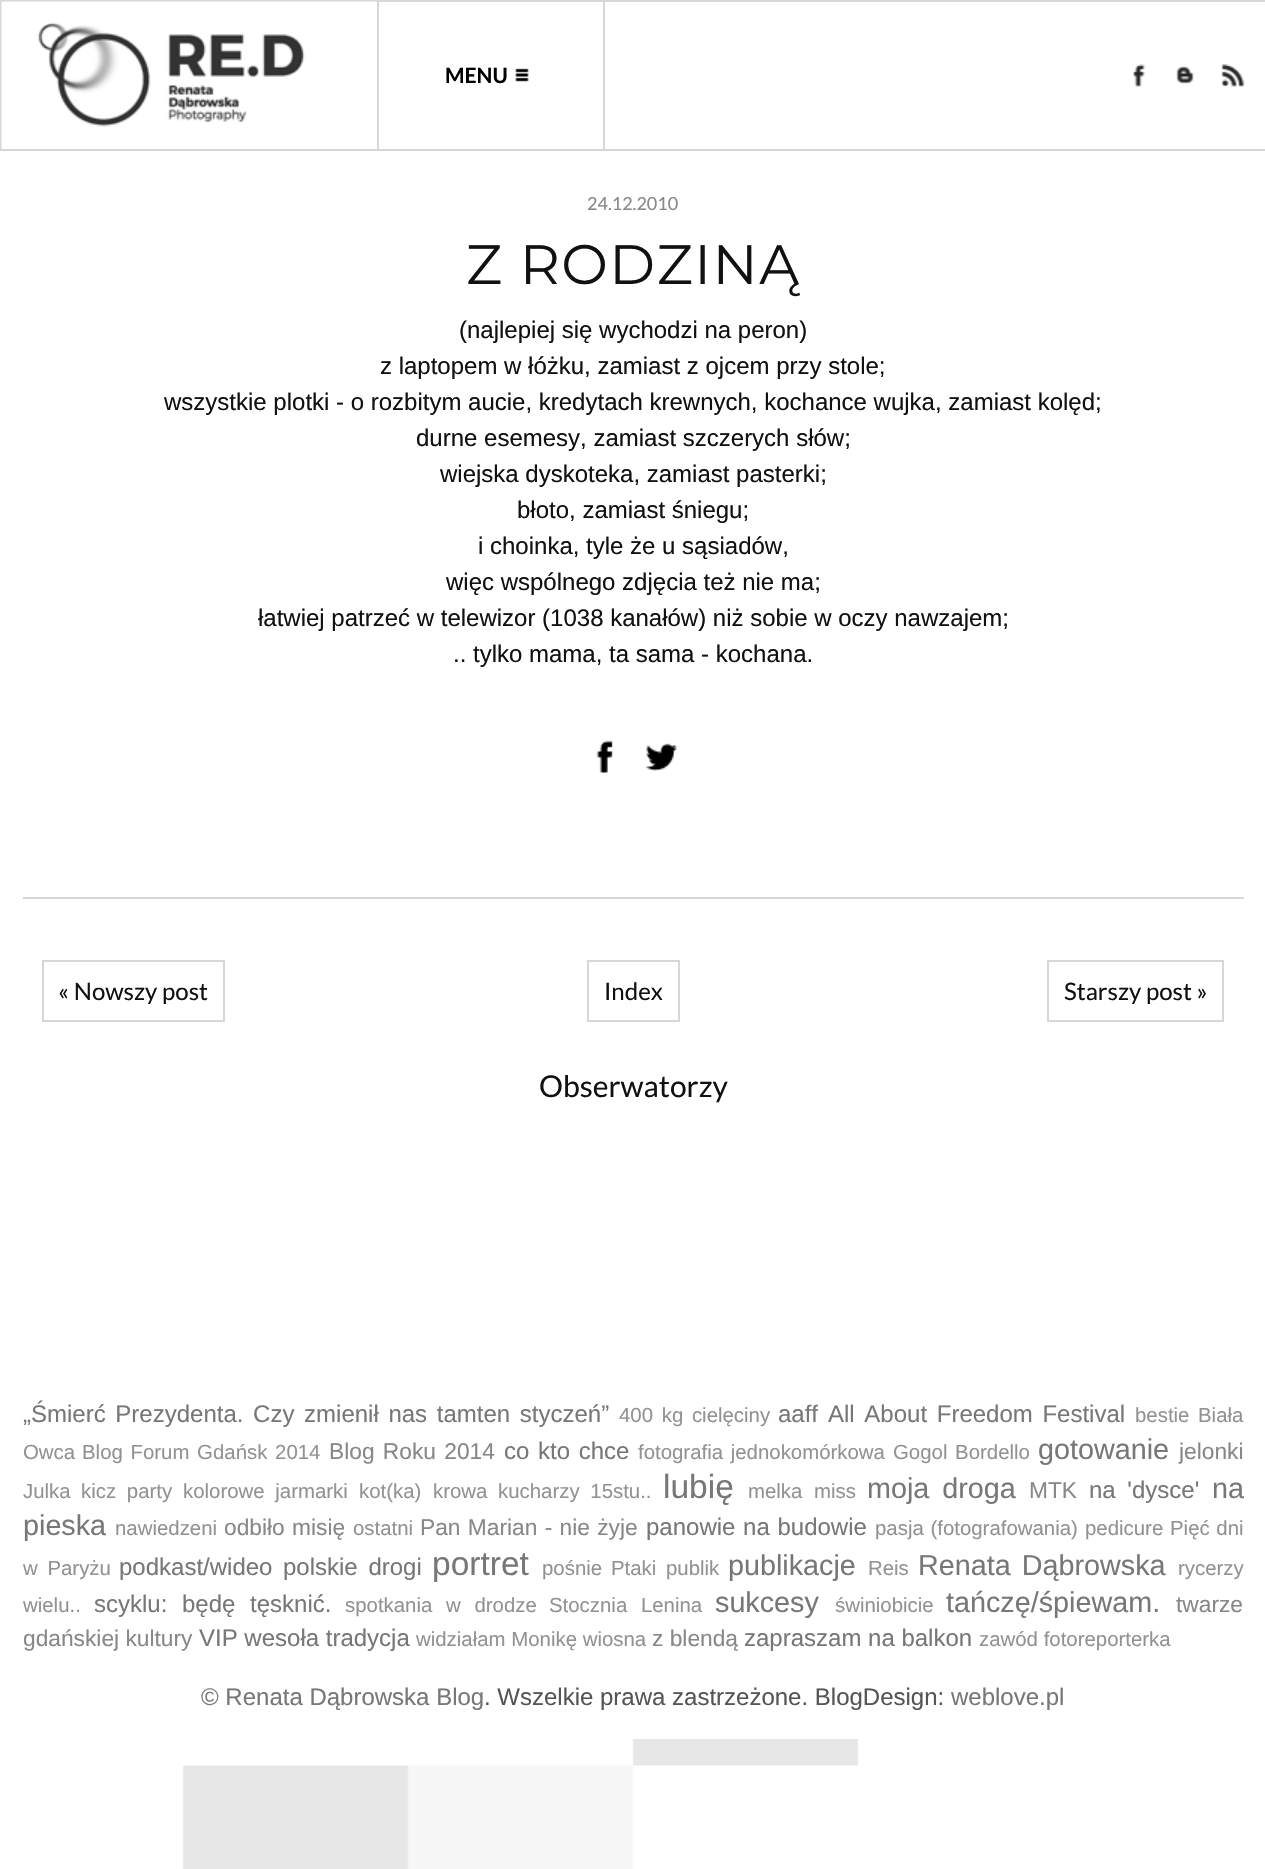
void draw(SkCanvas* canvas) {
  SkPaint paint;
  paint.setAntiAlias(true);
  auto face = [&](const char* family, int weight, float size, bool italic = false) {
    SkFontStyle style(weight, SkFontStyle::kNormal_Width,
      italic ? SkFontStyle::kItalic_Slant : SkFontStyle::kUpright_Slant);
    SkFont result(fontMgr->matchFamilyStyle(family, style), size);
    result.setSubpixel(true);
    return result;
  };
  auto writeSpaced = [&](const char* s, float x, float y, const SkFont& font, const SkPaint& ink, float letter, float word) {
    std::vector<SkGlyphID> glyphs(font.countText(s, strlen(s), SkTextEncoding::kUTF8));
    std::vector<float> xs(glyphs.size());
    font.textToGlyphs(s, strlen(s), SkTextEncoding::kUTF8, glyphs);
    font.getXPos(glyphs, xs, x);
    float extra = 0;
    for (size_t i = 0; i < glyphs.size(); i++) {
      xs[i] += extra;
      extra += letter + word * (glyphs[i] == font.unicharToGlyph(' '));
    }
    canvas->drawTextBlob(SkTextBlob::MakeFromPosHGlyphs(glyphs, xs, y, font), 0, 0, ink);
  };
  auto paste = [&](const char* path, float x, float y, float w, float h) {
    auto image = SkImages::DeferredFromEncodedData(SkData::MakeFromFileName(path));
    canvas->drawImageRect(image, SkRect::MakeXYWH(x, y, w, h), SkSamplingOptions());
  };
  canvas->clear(0xffffffff);
  paste("img/1.png", 182, 1739, 677, 130);
  {
    const struct { float x, y, w, h; SkColor color; } items[] = {
      {0, 0, 1265, 2, 0xffd7d7d7},
      {0, 149, 1265, 2, 0xffd7d7d7},
      {0, 2, 2, 147, 0xffd7d7d7},
    };
    for (auto [x, y, w, h, color] : items) {
      paint.setColor(color);
      canvas->drawRect(SkRect::MakeXYWH(x, y, w, h), paint);
    }
  }
  paste("img/2.png", 1, 1, 376, 148);
  canvas->drawRect(SkRect::MakeXYWH(603, 2, 2, 147), paint);
  canvas->drawRect(SkRect::MakeXYWH(377, 2, 2, 147), paint);
  paste("img/3.png", 515, 68, 14, 14);
  paste("img/4.png", 1133, 64, 13, 23);
  paste("img/5.png", 1176, 66, 18, 18);
  paste("img/6.png", 1221, 64, 24, 23);
  canvas->drawRect(SkRect::MakeXYWH(23, 897, 1221, 2), paint);
  paste("img/7.png", 596, 740, 17, 33);
  paste("img/8.png", 645, 743, 32, 29);
  paint.setStroke(true);
  paint.setStrokeWidth(2);
  canvas->drawRect(SkRect::MakeXYWH(43, 961, 181, 60), paint);
  canvas->drawRect(SkRect::MakeXYWH(588, 961, 91, 60), paint);
  canvas->drawRect(SkRect::MakeXYWH(1048, 961, 175, 60), paint);
  auto f0 = face("Lato", 700, 21);
  paint.setStroke(false);
  paint.setColor(0xff000000);
  canvas->drawString("MENU", 445, 83, f0, paint);
  auto f1 = face("Lato", 400, 18);
  paint.setColor(0xff888888);
  canvas->drawString("24.12.2010", 587, 210, f1, paint);
  auto f2 = face("Montserrat", 100, 55.5f);
  paint.setColor(0xff111111);
  writeSpaced("Z RODZINĄ", 466, 284, f2, paint, 1.5f, 0);
  auto f3 = face("Liberation Sans", 400, 24);
  {
    const struct { const char* s; float x, y; } items[] = {
      {"(najlepiej się wychodzi na peron)", 459, 338},
      {"z laptopem w łóżku, zamiast z ojcem przy stole;", 380, 374},
      {"wszystkie plotki - o rozbitym aucie, kredytach krewnych, kochance wujka, zamiast kolęd;", 164, 410},
      {"durne esemesy, zamiast szczerych słów;", 416, 446},
      {"wiejska dyskoteka, zamiast pasterki;", 440, 482},
      {"błoto, zamiast śniegu;", 517, 518},
      {"i choinka, tyle że u sąsiadów,", 478, 554},
      {"więc wspólnego zdjęcia też nie ma;", 446, 590},
      {"łatwiej patrzeć w telewizor (1038 kanałów) niż sobie w oczy nawzajem;", 258, 626},
      {".. tylko mama, ta sama - kochana.", 453, 662},
    };
    for (auto [s, x, y] : items) {
      canvas->drawString(s, x, y, f3, paint);
    }
  }
  auto f4 = face("Lato", 400, 24);
  {
    const struct { const char* s; float x, y; } items[] = {
      {"« Nowszy post", 58, 1000},
      {"Index", 604, 1000},
      {"Starszy post »", 1064, 1000},
    };
    for (auto [s, x, y] : items) {
      canvas->drawString(s, x, y, f4, paint);
    }
  }
  auto f5 = face("Lato", 400, 30);
  canvas->drawString("Obserwatorzy", 539, 1097, f5, paint);
  paint.setColor(0xff777777);
  writeSpaced("„Śmierć Prezydenta. Czy zmienił nas tamten styczeń”", 23, 1422, f3, paint, 0, 3);
  auto f6 = face("Liberation Sans", 400, 20.4f);
  paint.setColor(0xff929292);
  writeSpaced("400 kg cielęciny", 619, 1422, f6, paint, 0, 3);
  paint.setColor(0xff777777);
  canvas->drawString("aaff", 778, 1422, f3, paint);
  writeSpaced("All About Freedom Festival", 828, 1422, f3, paint, 0, 3);
  paint.setColor(0xff929292);
  {
    const struct { const char* s; float x, y; } items[] = {
      {"bestie", 1135, 1422},
      {"Biała", 1198, 1422},
      {"Owca", 23, 1459},
    };
    for (auto [s, x, y] : items) {
      canvas->drawString(s, x, y, f6, paint);
    }
  }
  writeSpaced("Blog Forum Gdańsk 2014", 82, 1459, f6, paint, 0, 2);
  auto f7 = face("Liberation Sans", 400, 22.75f);
  paint.setColor(0xff888888);
  writeSpaced("Blog Roku 2014", 329, 1459, f7, paint, 0, 2);
  paint.setColor(0xff777777);
  writeSpaced("co kto chce", 504, 1459, f3, paint, 0, 2);
  paint.setColor(0xff929292);
  writeSpaced("fotografia jednokomórkowa", 638, 1459, f6, paint, 0, 2);
  writeSpaced("Gogol Bordello", 893, 1459, f6, paint, 0, 2);
  auto f8 = face("Liberation Sans", 400, 28.75f);
  paint.setColor(0xff777777);
  canvas->drawString("gotowanie", 1038, 1459, f8, paint);
  paint.setColor(0xff888888);
  canvas->drawString("jelonki", 1179, 1459, f7, paint);
  paint.setColor(0xff929292);
  canvas->drawString("Julka", 23, 1498, f6, paint);
  writeSpaced("kicz party", 81, 1498, f6, paint, 0, 5);
  writeSpaced("kolorowe jarmarki", 183, 1498, f6, paint, 0, 5);
  canvas->drawString("kot(ka)", 359, 1498, f6, paint);
  canvas->drawString("krowa", 433, 1498, f6, paint);
  writeSpaced("kucharzy 15stu..", 498, 1498, f6, paint, 0, 5);
  auto f9 = face("Liberation Sans", 400, 33.5f);
  paint.setColor(0xff777777);
  canvas->drawString("lubię", 663, 1498, f9, paint);
  paint.setColor(0xff929292);
  canvas->drawString("melka", 748, 1498, f6, paint);
  canvas->drawString("miss", 814, 1498, f6, paint);
  paint.setColor(0xff777777);
  writeSpaced("moja droga", 867, 1498, f8, paint, 0, 5);
  paint.setColor(0xff888888);
  canvas->drawString("MTK", 1029, 1498, f7, paint);
  paint.setColor(0xff777777);
  writeSpaced("na 'dysce'", 1089, 1498, f3, paint, 0, 5);
  canvas->drawString("na", 1212, 1498, f8, paint);
  canvas->drawString("pieska", 23, 1535, f8, paint);
  paint.setColor(0xff929292);
  canvas->drawString("nawiedzeni", 115, 1535, f6, paint);
  paint.setColor(0xff888888);
  writeSpaced("odbiło misię", 224, 1535, f7, paint, 0, 1);
  paint.setColor(0xff929292);
  canvas->drawString("ostatni", 353, 1535, f6, paint);
  paint.setColor(0xff888888);
  writeSpaced("Pan Marian - nie żyje", 420, 1535, f7, paint, 0, 1);
  paint.setColor(0xff777777);
  writeSpaced("panowie na budowie", 646, 1535, f3, paint, 0, 1);
  paint.setColor(0xff929292);
  writeSpaced("pasja (fotografowania)", 875, 1535, f6, paint, 0, 1);
  canvas->drawString("pedicure", 1085, 1535, f6, paint);
  writeSpaced("Pięć dni", 1170, 1535, f6, paint, 0, 1);
  writeSpaced("w Paryżu", 23, 1575, f6, paint, 0, 4);
  paint.setColor(0xff777777);
  canvas->drawString("podkast/wideo", 119, 1575, f3, paint);
  writeSpaced("polskie drogi", 283, 1575, f3, paint, 0, 4);
  canvas->drawString("portret", 432, 1575, f9, paint);
  paint.setColor(0xff929292);
  {
    const struct { const char* s; float x, y; } items[] = {
      {"pośnie", 542, 1575},
      {"Ptaki", 611, 1575},
      {"publik", 666, 1575},
    };
    for (auto [s, x, y] : items) {
      canvas->drawString(s, x, y, f6, paint);
    }
  }
  paint.setColor(0xff777777);
  canvas->drawString("publikacje", 728, 1575, f8, paint);
  paint.setColor(0xff929292);
  canvas->drawString("Reis", 868, 1575, f6, paint);
  paint.setColor(0xff777777);
  writeSpaced("Renata Dąbrowska", 918, 1575, f8, paint, 0, 3);
  paint.setColor(0xff929292);
  canvas->drawString("rycerzy", 1178, 1575, f6, paint);
  canvas->drawString("wielu..", 23, 1612, f6, paint);
  paint.setColor(0xff777777);
  writeSpaced("scyklu: będę tęsknić.", 94, 1612, f3, paint, 0, 8);
  paint.setColor(0xff929292);
  writeSpaced("spotkania w drodze", 345, 1612, f6, paint, 0, 8);
  writeSpaced("Stocznia Lenina", 549, 1612, f6, paint, 0, 8);
  paint.setColor(0xff777777);
  canvas->drawString("sukcesy", 715, 1612, f8, paint);
  paint.setColor(0xff929292);
  canvas->drawString("świniobicie", 835, 1612, f6, paint);
  paint.setColor(0xff777777);
  canvas->drawString("tańczę/śpiewam.", 946, 1612, f8, paint);
  paint.setColor(0xff888888);
  canvas->drawString("twarze", 1176, 1612, f7, paint);
  canvas->drawString("gdańskiej kultury", 23, 1646, f7, paint);
  paint.setColor(0xff777777);
  canvas->drawString("VIP wesoła tradycja", 199, 1646, f3, paint);
  paint.setColor(0xff929292);
  canvas->drawString("widziałam Monikę wiosna", 416, 1646, f6, paint);
  paint.setColor(0xff888888);
  canvas->drawString("z blendą", 652, 1646, f7, paint);
  paint.setColor(0xff777777);
  canvas->drawString("zapraszam na balkon", 744, 1646, f3, paint);
  paint.setColor(0xff929292);
  canvas->drawString("zawód fotoreporterka", 979, 1646, f6, paint);
  paint.setColor(0xff777777);
  canvas->drawString("© Renata Dąbrowska Blog", 201, 1705, f3, paint);
  paint.setColor(0xff555555);
  canvas->drawString(". Wszelkie prawa zastrzeżone. BlogDesign:", 484, 1705, f3, paint);
  paint.setColor(0xff777777);
  canvas->drawString("weblove.pl", 951, 1705, f3, paint);
}
